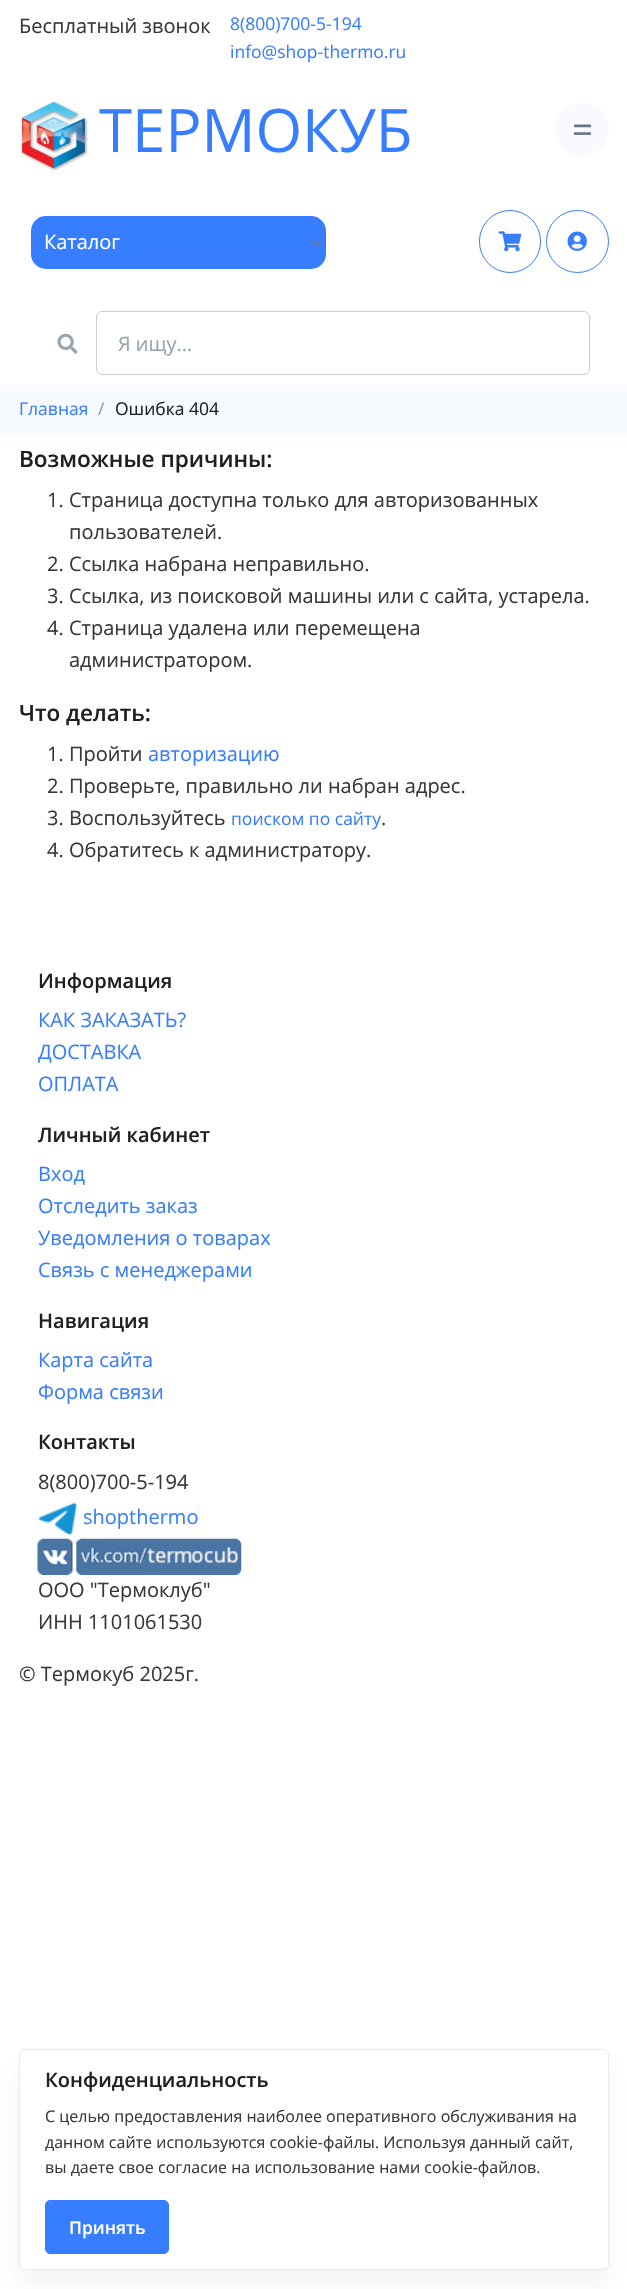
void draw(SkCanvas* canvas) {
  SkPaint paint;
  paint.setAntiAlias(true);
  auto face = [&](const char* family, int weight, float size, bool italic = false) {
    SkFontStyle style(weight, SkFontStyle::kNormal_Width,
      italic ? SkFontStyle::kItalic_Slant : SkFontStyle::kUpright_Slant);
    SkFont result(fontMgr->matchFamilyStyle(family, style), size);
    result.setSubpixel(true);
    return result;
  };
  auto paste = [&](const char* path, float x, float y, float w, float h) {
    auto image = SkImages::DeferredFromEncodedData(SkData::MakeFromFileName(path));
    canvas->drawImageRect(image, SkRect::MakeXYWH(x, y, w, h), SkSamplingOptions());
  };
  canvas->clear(0xffffffff);
  paste("img/1.png", 21, 101, 67, 70);
  paint.setColor(0xfff8fafd);
  canvas->drawRoundRect(SkRect::MakeXYWH(555, 103, 54, 53), 26.5f, 26.5f, paint);
  paste("img/2.png", 574, 124, 17, 11);
  paint.setColor(0xff377dff);
  canvas->drawRoundRect(SkRect::MakeXYWH(31, 216, 295, 53), 15, 15, paint);
  paste("img/3.png", 311, 240, 11, 6);
  paint.setStroke(true);
  paint.setStrokeWidth(1);
  canvas->drawRoundRect(SkRect::MakeXYWH(479.5f, 210.5f, 61, 62), 30.5f, 30.5f, paint);
  paste("img/4.png", 498, 231, 24, 21);
  canvas->drawCircle(577.5f, 241.5f, 31, paint);
  paste("img/5.png", 567, 231, 20, 20);
  paste("img/6.png", 57, 333, 21, 21);
  paint.setColor(0xffcccccc);
  canvas->drawRoundRect(SkRect::MakeXYWH(96.5f, 311.5f, 493, 63), 5.5f, 5.5f, paint);
  paint.setStroke(false);
  paint.setColor(0xfff7faff);
  canvas->drawRect(SkRect::MakeXYWH(0, 385, 627, 49), paint);
  paste("img/7.png", 38, 1502, 40, 34);
  paste("img/8.png", 37, 1538, 205, 37);
  paint.setColor(0x1a8c98a4);
  paint.setMaskFilter(SkMaskFilter::MakeBlur(kNormal_SkBlurStyle, 9.5f));
  canvas->drawRoundRect(SkRect::MakeXYWH(19, 2064, 590, 221), 6, 6, paint);
  paint.setMaskFilter(nullptr);
  paint.setColor(0xffffffff);
  canvas->drawRoundRect(SkRect::MakeXYWH(19.5f, 2049.5f, 589, 220), 5.5f, 5.5f, paint);
  paint.setStroke(true);
  paint.setColor(0xffe7eaf3);
  canvas->drawRoundRect(SkRect::MakeXYWH(19.5f, 2049.5f, 589, 220), 5.5f, 5.5f, paint);
  paint.setStroke(false);
  paint.setColor(0xff377dff);
  canvas->drawRoundRect(SkRect::MakeXYWH(45.5f, 2200.5f, 123, 53), 4.5f, 4.5f, paint);
  paint.setStroke(true);
  canvas->drawRoundRect(SkRect::MakeXYWH(45.5f, 2200.5f, 123, 53), 4.5f, 4.5f, paint);
  auto f0 = face("Open Sans", 400, 20);
  paint.setStroke(false);
  paint.setColor(0xff383838);
  canvas->drawString("Бесплатный звонок", 19, 33, f0, paint);
  auto f1 = face("Open Sans", 400, 17.5f);
  paint.setColor(0xff377dff);
  canvas->drawString("8(800)700-5-194", 230, 30, f1, paint);
  canvas->drawString("info@shop-thermo.ru", 230, 58, f1, paint);
  auto f2 = face("Open Sans", 400, 60);
  canvas->drawString("ТЕРМОКУБ", 99, 152, f2, paint);
  paint.setColor(0xffffffff);
  canvas->drawString("Каталог", 44, 249, f0, paint);
  paint.setColor(0xff97a4af);
  canvas->drawString("Я ищу...", 118, 351, f0, paint);
  paint.setColor(0xff377dff);
  canvas->drawString("Главная", 19, 415, f1, paint);
  paint.setColor(0xff8c98a4);
  canvas->drawString("/", 98, 415, f1, paint);
  paint.setColor(0xff1e2022);
  canvas->drawString("Ошибка 404", 115, 415, f1, paint);
  auto f3 = face("Open Sans", 600, 22.5f);
  canvas->drawString("Возможные причины:", 19, 467, f3, paint);
  paint.setColor(0xff383838);
  {
    const struct { const char* s; float x, y; } items[] = {
      {"1. Страница доступна только для авторизованных", 47, 507},
      {"пользователей.", 69, 539},
      {"2. Ссылка набрана неправильно.", 47, 571},
      {"3. Ссылка, из поисковой машины или с сайта, устарела.", 47, 603},
      {"4. Страница удалена или перемещена", 47, 635},
      {"администратором.", 69, 667},
    };
    for (auto [s, x, y] : items) {
      canvas->drawString(s, x, y, f0, paint);
    }
  }
  paint.setColor(0xff1e2022);
  canvas->drawString("Что делать:", 19, 721, f3, paint);
  paint.setColor(0xff383838);
  canvas->drawString("1. Пройти", 47, 761, f0, paint);
  paint.setColor(0xff377dff);
  canvas->drawString("авторизацию", 148, 761, f0, paint);
  paint.setColor(0xff383838);
  canvas->drawString("2. Проверьте, правильно ли набран адрес.", 47, 793, f0, paint);
  canvas->drawString("3. Воспользуйтесь", 47, 825, f0, paint);
  paint.setColor(0xff377dff);
  canvas->drawString("поиском по сайту", 231, 825, f1, paint);
  paint.setColor(0xff383838);
  canvas->drawString(".", 381, 825, f0, paint);
  canvas->drawString("4. Обратитесь к администратору.", 47, 857, f0, paint);
  auto f4 = face("Open Sans", 600, 20);
  paint.setColor(0xff1e2022);
  canvas->drawString("Информация", 38, 988, f4, paint);
  paint.setColor(0xff377dff);
  {
    const struct { const char* s; float x, y; } items[] = {
      {"КАК ЗАКАЗАТЬ?", 38, 1027},
      {"ДОСТАВКА", 38, 1059},
      {"ОПЛАТА", 38, 1091},
    };
    for (auto [s, x, y] : items) {
      canvas->drawString(s, x, y, f0, paint);
    }
  }
  paint.setColor(0xff1e2022);
  canvas->drawString("Личный кабинет", 38, 1142, f4, paint);
  paint.setColor(0xff377dff);
  {
    const struct { const char* s; float x, y; } items[] = {
      {"Вход", 38, 1181},
      {"Отследить заказ", 38, 1213},
      {"Уведомления о товарах", 38, 1245},
      {"Связь с менеджерами", 38, 1277},
    };
    for (auto [s, x, y] : items) {
      canvas->drawString(s, x, y, f0, paint);
    }
  }
  paint.setColor(0xff1e2022);
  canvas->drawString("Навигация", 38, 1328, f4, paint);
  paint.setColor(0xff377dff);
  canvas->drawString("Карта сайта", 38, 1367, f0, paint);
  canvas->drawString("Форма связи", 38, 1399, f0, paint);
  paint.setColor(0xff1e2022);
  canvas->drawString("Контакты", 38, 1449, f4, paint);
  paint.setColor(0xff383838);
  canvas->drawString("8(800)700-5-194", 38, 1489, f0, paint);
  paint.setColor(0xff377dff);
  canvas->drawString("shopthermo", 83, 1524, f0, paint);
  paint.setColor(0xff383838);
  {
    const struct { const char* s; float x, y; } items[] = {
      {"ООО \"Термоклуб\"", 38, 1597},
      {"ИНН 1101061530", 38, 1629},
      {"© Термокуб 2025г.", 19, 1681},
    };
    for (auto [s, x, y] : items) {
      canvas->drawString(s, x, y, f0, paint);
    }
  }
  paint.setColor(0xff1e2022);
  canvas->drawString("Конфиденциальность", 45, 2087, f4, paint);
  auto f5 = face("Open Sans", 400, 16);
  paint.setColor(0xff383838);
  {
    const struct { const char* s; float x, y; } items[] = {
      {"С целью предоставления наиболее оперативного обслуживания на", 45, 2122},
      {"данном сайте используются cookie-файлы. Используя данный сайт,", 45, 2148},
      {"вы даете свое согласие на использование нами cookie-файлов.", 45, 2173},
    };
    for (auto [s, x, y] : items) {
      canvas->drawString(s, x, y, f5, paint);
    }
  }
  auto f6 = face("Open Sans", 600, 17.5f);
  paint.setColor(0xffffffff);
  canvas->drawString("Принять", 69, 2234, f6, paint);
}
